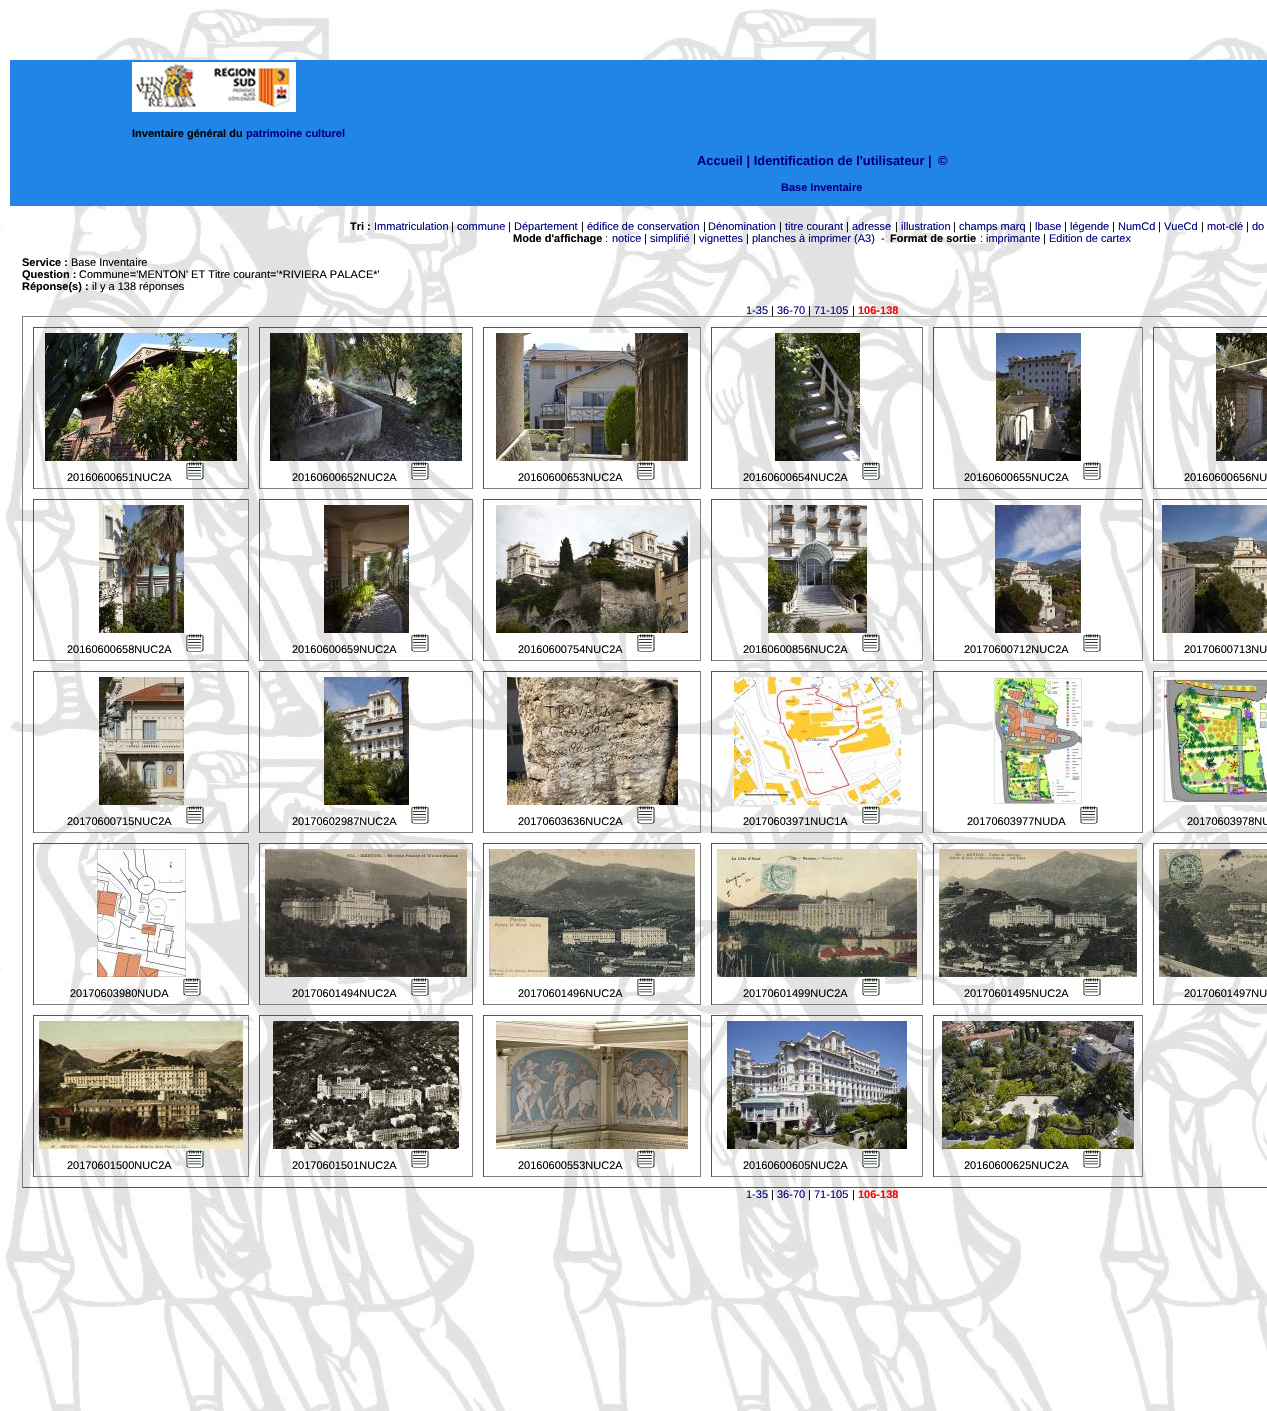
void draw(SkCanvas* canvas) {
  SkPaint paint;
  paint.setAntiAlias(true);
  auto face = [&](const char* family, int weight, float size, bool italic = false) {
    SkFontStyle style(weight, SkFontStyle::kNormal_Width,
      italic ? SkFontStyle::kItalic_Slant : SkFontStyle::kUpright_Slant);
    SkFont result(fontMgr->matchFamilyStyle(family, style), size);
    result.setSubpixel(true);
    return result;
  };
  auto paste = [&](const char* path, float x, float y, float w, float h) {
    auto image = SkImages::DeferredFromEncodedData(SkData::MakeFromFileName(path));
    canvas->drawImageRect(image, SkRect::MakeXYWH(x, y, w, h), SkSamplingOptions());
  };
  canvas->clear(0xffffffff);
  paste("img/1.png", 0, 6, 1267, 1405);
  paint.setColor(0xff2184e7);
  canvas->drawRect(SkRect::MakeXYWH(10, 60, 1257, 146), paint);
  paste("img/2.png", 132, 62, 164, 50);
  {
    const struct { float x, y, w, h; SkColor color; } items[] = {
      {22, 316, 1245, 1, 0xff808080},
      {22, 1187, 1245, 1, 0xff555555},
      {22, 316, 1, 872, 0xff808080},
      {33, 327, 216, 1, 0xff555555},
      {248, 327, 1, 162, 0xff808080},
      {33, 488, 216, 1, 0xff808080},
      {33, 327, 1, 162, 0xff555555},
    };
    for (auto [x, y, w, h, color] : items) {
      paint.setColor(color);
      canvas->drawRect(SkRect::MakeXYWH(x, y, w, h), paint);
    }
  }
  paste("img/3.png", 45, 333, 192, 128);
  paste("img/4.png", 186, 462, 18, 18);
  {
    const struct { float x, y, w, h; SkColor color; } items[] = {
      {259, 327, 214, 1, 0xff555555},
      {472, 327, 1, 162, 0xff808080},
      {259, 488, 214, 1, 0xff808080},
      {259, 327, 1, 162, 0xff555555},
    };
    for (auto [x, y, w, h, color] : items) {
      paint.setColor(color);
      canvas->drawRect(SkRect::MakeXYWH(x, y, w, h), paint);
    }
  }
  paste("img/5.png", 270, 333, 192, 128);
  paste("img/6.png", 411, 462, 18, 18);
  {
    const struct { float x, y, w, h; SkColor color; } items[] = {
      {483, 327, 218, 1, 0xff555555},
      {700, 327, 1, 162, 0xff808080},
      {483, 488, 218, 1, 0xff808080},
      {483, 327, 1, 162, 0xff555555},
    };
    for (auto [x, y, w, h, color] : items) {
      paint.setColor(color);
      canvas->drawRect(SkRect::MakeXYWH(x, y, w, h), paint);
    }
  }
  paste("img/7.png", 496, 333, 192, 128);
  paste("img/8.png", 637, 462, 18, 18);
  {
    const struct { float x, y, w, h; SkColor color; } items[] = {
      {711, 327, 212, 1, 0xff555555},
      {922, 327, 1, 162, 0xff808080},
      {711, 488, 212, 1, 0xff808080},
      {711, 327, 1, 162, 0xff555555},
    };
    for (auto [x, y, w, h, color] : items) {
      paint.setColor(color);
      canvas->drawRect(SkRect::MakeXYWH(x, y, w, h), paint);
    }
  }
  paste("img/9.png", 775, 333, 85, 128);
  paste("img/10.png", 862, 462, 18, 18);
  {
    const struct { float x, y, w, h; SkColor color; } items[] = {
      {933, 327, 210, 1, 0xff555555},
      {1142, 327, 1, 162, 0xff808080},
      {933, 488, 210, 1, 0xff808080},
      {933, 327, 1, 162, 0xff555555},
    };
    for (auto [x, y, w, h, color] : items) {
      paint.setColor(color);
      canvas->drawRect(SkRect::MakeXYWH(x, y, w, h), paint);
    }
  }
  paste("img/11.png", 996, 333, 85, 128);
  paste("img/12.png", 1083, 462, 18, 18);
  {
    const struct { float x, y, w, h; SkColor color; } items[] = {
      {1153, 327, 114, 1, 0xff555555},
      {1153, 488, 114, 1, 0xff808080},
      {1153, 327, 1, 162, 0xff555555},
    };
    for (auto [x, y, w, h, color] : items) {
      paint.setColor(color);
      canvas->drawRect(SkRect::MakeXYWH(x, y, w, h), paint);
    }
  }
  paste("img/13.png", 1216, 333, 51, 128);
  {
    const struct { float x, y, w, h; SkColor color; } items[] = {
      {33, 499, 216, 1, 0xff555555},
      {248, 499, 1, 162, 0xff808080},
      {33, 660, 216, 1, 0xff808080},
      {33, 499, 1, 162, 0xff555555},
    };
    for (auto [x, y, w, h, color] : items) {
      paint.setColor(color);
      canvas->drawRect(SkRect::MakeXYWH(x, y, w, h), paint);
    }
  }
  paste("img/14.png", 99, 505, 85, 128);
  paste("img/15.png", 186, 634, 18, 18);
  {
    const struct { float x, y, w, h; SkColor color; } items[] = {
      {259, 499, 214, 1, 0xff555555},
      {472, 499, 1, 162, 0xff808080},
      {259, 660, 214, 1, 0xff808080},
      {259, 499, 1, 162, 0xff555555},
    };
    for (auto [x, y, w, h, color] : items) {
      paint.setColor(color);
      canvas->drawRect(SkRect::MakeXYWH(x, y, w, h), paint);
    }
  }
  paste("img/16.png", 324, 505, 85, 128);
  paste("img/17.png", 411, 634, 18, 18);
  {
    const struct { float x, y, w, h; SkColor color; } items[] = {
      {483, 499, 218, 1, 0xff555555},
      {700, 499, 1, 162, 0xff808080},
      {483, 660, 218, 1, 0xff808080},
      {483, 499, 1, 162, 0xff555555},
    };
    for (auto [x, y, w, h, color] : items) {
      paint.setColor(color);
      canvas->drawRect(SkRect::MakeXYWH(x, y, w, h), paint);
    }
  }
  paste("img/18.png", 496, 505, 192, 128);
  paste("img/12.png", 637, 634, 18, 18);
  {
    const struct { float x, y, w, h; SkColor color; } items[] = {
      {711, 499, 212, 1, 0xff555555},
      {922, 499, 1, 162, 0xff808080},
      {711, 660, 212, 1, 0xff808080},
      {711, 499, 1, 162, 0xff555555},
    };
    for (auto [x, y, w, h, color] : items) {
      paint.setColor(color);
      canvas->drawRect(SkRect::MakeXYWH(x, y, w, h), paint);
    }
  }
  paste("img/19.png", 768, 505, 99, 128);
  paste("img/20.png", 862, 634, 18, 18);
  {
    const struct { float x, y, w, h; SkColor color; } items[] = {
      {933, 499, 210, 1, 0xff555555},
      {1142, 499, 1, 162, 0xff808080},
      {933, 660, 210, 1, 0xff808080},
      {933, 499, 1, 162, 0xff555555},
    };
    for (auto [x, y, w, h, color] : items) {
      paint.setColor(color);
      canvas->drawRect(SkRect::MakeXYWH(x, y, w, h), paint);
    }
  }
  paste("img/21.png", 995, 505, 86, 128);
  paste("img/12.png", 1083, 634, 18, 18);
  {
    const struct { float x, y, w, h; SkColor color; } items[] = {
      {1153, 499, 114, 1, 0xff555555},
      {1153, 660, 114, 1, 0xff808080},
      {1153, 499, 1, 162, 0xff555555},
    };
    for (auto [x, y, w, h, color] : items) {
      paint.setColor(color);
      canvas->drawRect(SkRect::MakeXYWH(x, y, w, h), paint);
    }
  }
  paste("img/22.png", 1162, 505, 105, 128);
  {
    const struct { float x, y, w, h; SkColor color; } items[] = {
      {33, 671, 216, 1, 0xff555555},
      {248, 671, 1, 162, 0xff808080},
      {33, 832, 216, 1, 0xff808080},
      {33, 671, 1, 162, 0xff555555},
    };
    for (auto [x, y, w, h, color] : items) {
      paint.setColor(color);
      canvas->drawRect(SkRect::MakeXYWH(x, y, w, h), paint);
    }
  }
  paste("img/23.png", 99, 677, 85, 128);
  paste("img/24.png", 186, 806, 18, 18);
  {
    const struct { float x, y, w, h; SkColor color; } items[] = {
      {259, 671, 214, 1, 0xff555555},
      {472, 671, 1, 162, 0xff808080},
      {259, 832, 214, 1, 0xff808080},
      {259, 671, 1, 162, 0xff555555},
    };
    for (auto [x, y, w, h, color] : items) {
      paint.setColor(color);
      canvas->drawRect(SkRect::MakeXYWH(x, y, w, h), paint);
    }
  }
  paste("img/25.png", 324, 677, 85, 128);
  paste("img/17.png", 411, 806, 18, 18);
  {
    const struct { float x, y, w, h; SkColor color; } items[] = {
      {483, 671, 218, 1, 0xff555555},
      {700, 671, 1, 162, 0xff808080},
      {483, 832, 218, 1, 0xff808080},
      {483, 671, 1, 162, 0xff555555},
    };
    for (auto [x, y, w, h, color] : items) {
      paint.setColor(color);
      canvas->drawRect(SkRect::MakeXYWH(x, y, w, h), paint);
    }
  }
  paste("img/26.png", 507, 677, 171, 128);
  paste("img/27.png", 637, 806, 18, 18);
  {
    const struct { float x, y, w, h; SkColor color; } items[] = {
      {711, 671, 212, 1, 0xff555555},
      {922, 671, 1, 162, 0xff808080},
      {711, 832, 212, 1, 0xff808080},
      {711, 671, 1, 162, 0xff555555},
    };
    for (auto [x, y, w, h, color] : items) {
      paint.setColor(color);
      canvas->drawRect(SkRect::MakeXYWH(x, y, w, h), paint);
    }
  }
  paste("img/28.png", 734, 677, 167, 128);
  paste("img/29.png", 862, 806, 18, 18);
  {
    const struct { float x, y, w, h; SkColor color; } items[] = {
      {933, 671, 210, 1, 0xff555555},
      {1142, 671, 1, 162, 0xff808080},
      {933, 832, 210, 1, 0xff808080},
      {933, 671, 1, 162, 0xff555555},
    };
    for (auto [x, y, w, h, color] : items) {
      paint.setColor(color);
      canvas->drawRect(SkRect::MakeXYWH(x, y, w, h), paint);
    }
  }
  paste("img/30.png", 993, 677, 90, 128);
  paste("img/17.png", 1080, 806, 18, 18);
  {
    const struct { float x, y, w, h; SkColor color; } items[] = {
      {1153, 671, 114, 1, 0xff555555},
      {1153, 832, 114, 1, 0xff808080},
      {1153, 671, 1, 162, 0xff555555},
    };
    for (auto [x, y, w, h, color] : items) {
      paint.setColor(color);
      canvas->drawRect(SkRect::MakeXYWH(x, y, w, h), paint);
    }
  }
  paste("img/31.png", 1161, 677, 106, 128);
  {
    const struct { float x, y, w, h; SkColor color; } items[] = {
      {33, 843, 216, 1, 0xff555555},
      {248, 843, 1, 162, 0xff808080},
      {33, 1004, 216, 1, 0xff808080},
      {33, 843, 1, 162, 0xff555555},
    };
    for (auto [x, y, w, h, color] : items) {
      paint.setColor(color);
      canvas->drawRect(SkRect::MakeXYWH(x, y, w, h), paint);
    }
  }
  paste("img/32.png", 97, 849, 89, 128);
  paste("img/33.png", 183, 978, 18, 18);
  {
    const struct { float x, y, w, h; SkColor color; } items[] = {
      {259, 843, 214, 1, 0xff555555},
      {472, 843, 1, 162, 0xff808080},
      {259, 1004, 214, 1, 0xff808080},
      {259, 843, 1, 162, 0xff555555},
    };
    for (auto [x, y, w, h, color] : items) {
      paint.setColor(color);
      canvas->drawRect(SkRect::MakeXYWH(x, y, w, h), paint);
    }
  }
  paste("img/34.png", 265, 849, 202, 128);
  paste("img/35.png", 411, 978, 18, 18);
  {
    const struct { float x, y, w, h; SkColor color; } items[] = {
      {483, 843, 218, 1, 0xff555555},
      {700, 843, 1, 162, 0xff808080},
      {483, 1004, 218, 1, 0xff808080},
      {483, 843, 1, 162, 0xff555555},
    };
    for (auto [x, y, w, h, color] : items) {
      paint.setColor(color);
      canvas->drawRect(SkRect::MakeXYWH(x, y, w, h), paint);
    }
  }
  paste("img/36.png", 489, 849, 206, 128);
  paste("img/37.png", 637, 978, 18, 18);
  {
    const struct { float x, y, w, h; SkColor color; } items[] = {
      {711, 843, 212, 1, 0xff555555},
      {922, 843, 1, 162, 0xff808080},
      {711, 1004, 212, 1, 0xff808080},
      {711, 843, 1, 162, 0xff555555},
    };
    for (auto [x, y, w, h, color] : items) {
      paint.setColor(color);
      canvas->drawRect(SkRect::MakeXYWH(x, y, w, h), paint);
    }
  }
  paste("img/38.png", 717, 849, 200, 128);
  paste("img/39.png", 862, 978, 18, 18);
  {
    const struct { float x, y, w, h; SkColor color; } items[] = {
      {933, 843, 210, 1, 0xff555555},
      {1142, 843, 1, 162, 0xff808080},
      {933, 1004, 210, 1, 0xff808080},
      {933, 843, 1, 162, 0xff555555},
    };
    for (auto [x, y, w, h, color] : items) {
      paint.setColor(color);
      canvas->drawRect(SkRect::MakeXYWH(x, y, w, h), paint);
    }
  }
  paste("img/40.png", 939, 849, 198, 128);
  paste("img/12.png", 1083, 978, 18, 18);
  {
    const struct { float x, y, w, h; SkColor color; } items[] = {
      {1153, 843, 114, 1, 0xff555555},
      {1153, 1004, 114, 1, 0xff808080},
      {1153, 843, 1, 162, 0xff555555},
    };
    for (auto [x, y, w, h, color] : items) {
      paint.setColor(color);
      canvas->drawRect(SkRect::MakeXYWH(x, y, w, h), paint);
    }
  }
  paste("img/41.png", 1159, 849, 108, 128);
  {
    const struct { float x, y, w, h; SkColor color; } items[] = {
      {33, 1015, 216, 1, 0xff555555},
      {248, 1015, 1, 162, 0xff808080},
      {33, 1176, 216, 1, 0xff808080},
      {33, 1015, 1, 162, 0xff555555},
    };
    for (auto [x, y, w, h, color] : items) {
      paint.setColor(color);
      canvas->drawRect(SkRect::MakeXYWH(x, y, w, h), paint);
    }
  }
  paste("img/42.png", 39, 1021, 204, 128);
  paste("img/43.png", 186, 1150, 18, 18);
  {
    const struct { float x, y, w, h; SkColor color; } items[] = {
      {259, 1015, 214, 1, 0xff555555},
      {472, 1015, 1, 162, 0xff808080},
      {259, 1176, 214, 1, 0xff808080},
      {259, 1015, 1, 162, 0xff555555},
    };
    for (auto [x, y, w, h, color] : items) {
      paint.setColor(color);
      canvas->drawRect(SkRect::MakeXYWH(x, y, w, h), paint);
    }
  }
  paste("img/44.png", 273, 1021, 186, 128);
  paste("img/45.png", 411, 1150, 18, 18);
  {
    const struct { float x, y, w, h; SkColor color; } items[] = {
      {483, 1015, 218, 1, 0xff555555},
      {700, 1015, 1, 162, 0xff808080},
      {483, 1176, 218, 1, 0xff808080},
      {483, 1015, 1, 162, 0xff555555},
    };
    for (auto [x, y, w, h, color] : items) {
      paint.setColor(color);
      canvas->drawRect(SkRect::MakeXYWH(x, y, w, h), paint);
    }
  }
  paste("img/46.png", 496, 1021, 192, 128);
  paste("img/47.png", 637, 1150, 18, 18);
  {
    const struct { float x, y, w, h; SkColor color; } items[] = {
      {711, 1015, 212, 1, 0xff555555},
      {922, 1015, 1, 162, 0xff808080},
      {711, 1176, 212, 1, 0xff808080},
      {711, 1015, 1, 162, 0xff555555},
    };
    for (auto [x, y, w, h, color] : items) {
      paint.setColor(color);
      canvas->drawRect(SkRect::MakeXYWH(x, y, w, h), paint);
    }
  }
  paste("img/48.png", 727, 1021, 180, 128);
  paste("img/49.png", 862, 1150, 18, 18);
  {
    const struct { float x, y, w, h; SkColor color; } items[] = {
      {933, 1015, 210, 1, 0xff555555},
      {1142, 1015, 1, 162, 0xff808080},
      {933, 1176, 210, 1, 0xff808080},
      {933, 1015, 1, 162, 0xff555555},
    };
    for (auto [x, y, w, h, color] : items) {
      paint.setColor(color);
      canvas->drawRect(SkRect::MakeXYWH(x, y, w, h), paint);
    }
  }
  paste("img/50.png", 942, 1021, 192, 128);
  paste("img/12.png", 1083, 1150, 18, 18);
  auto f0 = face("Liberation Sans", 700, 11);
  paint.setColor(0xff000000);
  canvas->drawString("Inventaire général du", 132, 137, f0, paint);
  paint.setColor(0xff000080);
  canvas->drawString("patrimoine culturel", 246, 137, f0, paint);
  auto f1 = face("Liberation Sans", 700, 12.9f);
  canvas->drawString("Accueil | Identification de l'utilisateur |", 697, 165, f1, paint);
  canvas->drawString("©", 938, 165, f1, paint);
  canvas->drawString("Base Inventaire", 781, 191, f0, paint);
  paint.setColor(0xff000000);
  canvas->drawString("Tri :", 350, 230, f0, paint);
  auto f2 = face("Liberation Sans", 400, 11);
  paint.setColor(0xff000080);
  canvas->drawString("Immatriculation", 374, 230, f2, paint);
  paint.setColor(0xff000000);
  canvas->drawString("|", 451, 230, f2, paint);
  paint.setColor(0xff000080);
  canvas->drawString("commune", 457, 230, f2, paint);
  paint.setColor(0xff000000);
  canvas->drawString("|", 508, 230, f2, paint);
  paint.setColor(0xff000080);
  canvas->drawString("Département", 514, 230, f2, paint);
  paint.setColor(0xff000000);
  canvas->drawString("|", 581, 230, f2, paint);
  paint.setColor(0xff000080);
  canvas->drawString("édifice de conservation", 587, 230, f2, paint);
  paint.setColor(0xff000000);
  canvas->drawString("|", 703, 230, f2, paint);
  paint.setColor(0xff000080);
  canvas->drawString("Dénomination", 708, 230, f2, paint);
  paint.setColor(0xff000000);
  canvas->drawString("|", 779, 230, f2, paint);
  paint.setColor(0xff000080);
  canvas->drawString("titre courant", 785, 230, f2, paint);
  paint.setColor(0xff000000);
  canvas->drawString("|", 846, 230, f2, paint);
  paint.setColor(0xff000080);
  canvas->drawString("adresse", 852, 230, f2, paint);
  paint.setColor(0xff000000);
  canvas->drawString("|", 895, 230, f2, paint);
  paint.setColor(0xff000080);
  canvas->drawString("illustration", 901, 230, f2, paint);
  paint.setColor(0xff000000);
  canvas->drawString("|", 953, 230, f2, paint);
  paint.setColor(0xff000080);
  canvas->drawString("champs marq", 959, 230, f2, paint);
  paint.setColor(0xff000000);
  canvas->drawString("|", 1029, 230, f2, paint);
  paint.setColor(0xff000080);
  canvas->drawString("lbase", 1035, 230, f2, paint);
  paint.setColor(0xff000000);
  canvas->drawString("|", 1064, 230, f2, paint);
  paint.setColor(0xff000080);
  canvas->drawString("légende", 1070, 230, f2, paint);
  paint.setColor(0xff000000);
  canvas->drawString("|", 1112, 230, f2, paint);
  paint.setColor(0xff000080);
  canvas->drawString("NumCd", 1118, 230, f2, paint);
  paint.setColor(0xff000000);
  canvas->drawString("|", 1158, 230, f2, paint);
  paint.setColor(0xff000080);
  canvas->drawString("VueCd", 1164, 230, f2, paint);
  paint.setColor(0xff000000);
  canvas->drawString("|", 1201, 230, f2, paint);
  paint.setColor(0xff000080);
  canvas->drawString("mot-clé", 1207, 230, f2, paint);
  paint.setColor(0xff000000);
  canvas->drawString("|", 1246, 230, f2, paint);
  paint.setColor(0xff000080);
  canvas->drawString("do", 1252, 230, f2, paint);
  paint.setColor(0xff000000);
  canvas->drawString("Mode d'affichage", 513, 242, f0, paint);
  canvas->drawString(":", 605, 242, f2, paint);
  paint.setColor(0xff000080);
  canvas->drawString("notice", 612, 242, f2, paint);
  paint.setColor(0xff000000);
  canvas->drawString("|", 644, 242, f2, paint);
  paint.setColor(0xff000080);
  canvas->drawString("simplifié", 650, 242, f2, paint);
  paint.setColor(0xff000000);
  canvas->drawString("|", 693, 242, f2, paint);
  paint.setColor(0xff000080);
  canvas->drawString("vignettes", 699, 242, f2, paint);
  paint.setColor(0xff000000);
  canvas->drawString("|", 746, 242, f2, paint);
  paint.setColor(0xff000080);
  canvas->drawString("planches à imprimer (A3)", 752, 242, f2, paint);
  paint.setColor(0xff000000);
  canvas->drawString("-", 881, 242, f2, paint);
  canvas->drawString("Format de sortie", 890, 242, f0, paint);
  canvas->drawString(":", 980, 242, f2, paint);
  paint.setColor(0xff000080);
  canvas->drawString("imprimante", 986, 242, f2, paint);
  paint.setColor(0xff000000);
  canvas->drawString("|", 1043, 242, f2, paint);
  paint.setColor(0xff000080);
  canvas->drawString("Edition de cartex", 1049, 242, f2, paint);
  paint.setColor(0xff000000);
  canvas->drawString("Service :", 22, 266, f0, paint);
  canvas->drawString("Base Inventaire", 71, 266, f2, paint);
  canvas->drawString("Question :", 22, 278, f0, paint);
  canvas->drawString("Commune='MENTON' ET Titre courant='*RIVIERA PALACE*'", 79, 278, f2, paint);
  canvas->drawString("Réponse(s) :", 22, 290, f0, paint);
  canvas->drawString("il y a 138 réponses", 92, 290, f2, paint);
  paint.setColor(0xff000080);
  canvas->drawString("1-35", 746, 314, f2, paint);
  paint.setColor(0xff000000);
  canvas->drawString("|", 771, 314, f2, paint);
  paint.setColor(0xff000080);
  canvas->drawString("36-70", 777, 314, f2, paint);
  paint.setColor(0xff000000);
  canvas->drawString("|", 808, 314, f2, paint);
  paint.setColor(0xff000080);
  canvas->drawString("71-105", 814, 314, f2, paint);
  paint.setColor(0xff000000);
  canvas->drawString("|", 852, 314, f2, paint);
  paint.setColor(0xffff0000);
  canvas->drawString("106-138", 858, 314, f0, paint);
  paint.setColor(0xff000000);
  {
    const struct { const char* s; float x, y; } items[] = {
      {"20160600651NUC2A", 67, 481},
      {"20160600652NUC2A", 292, 481},
      {"20160600653NUC2A", 518, 481},
      {"20160600654NUC2A", 743, 481},
      {"20160600655NUC2A", 964, 481},
      {"20160600656NU", 1184, 481},
      {"20160600658NUC2A", 67, 653},
      {"20160600659NUC2A", 292, 653},
      {"20160600754NUC2A", 518, 653},
      {"20160600856NUC2A", 743, 653},
      {"20170600712NUC2A", 964, 653},
      {"20170600713NU", 1184, 653},
      {"20170600715NUC2A", 67, 825},
      {"20170602987NUC2A", 292, 825},
      {"20170603636NUC2A", 518, 825},
      {"20170603971NUC1A", 743, 825},
      {"20170603977NUDA", 967, 825},
      {"20170603978NU", 1187, 825},
      {"20170603980NUDA", 70, 997},
      {"20170601494NUC2A", 292, 997},
      {"20170601496NUC2A", 518, 997},
      {"20170601499NUC2A", 743, 997},
      {"20170601495NUC2A", 964, 997},
      {"20170601497NU", 1184, 997},
      {"20170601500NUC2A", 67, 1169},
      {"20170601501NUC2A", 292, 1169},
      {"20160600553NUC2A", 518, 1169},
      {"20160600605NUC2A", 743, 1169},
      {"20160600625NUC2A", 964, 1169},
    };
    for (auto [s, x, y] : items) {
      canvas->drawString(s, x, y, f2, paint);
    }
  }
  paint.setColor(0xff000080);
  canvas->drawString("1-35", 746, 1198, f2, paint);
  paint.setColor(0xff000000);
  canvas->drawString("|", 771, 1198, f2, paint);
  paint.setColor(0xff000080);
  canvas->drawString("36-70", 777, 1198, f2, paint);
  paint.setColor(0xff000000);
  canvas->drawString("|", 808, 1198, f2, paint);
  paint.setColor(0xff000080);
  canvas->drawString("71-105", 814, 1198, f2, paint);
  paint.setColor(0xff000000);
  canvas->drawString("|", 852, 1198, f2, paint);
  paint.setColor(0xffff0000);
  canvas->drawString("106-138", 858, 1198, f0, paint);
}
